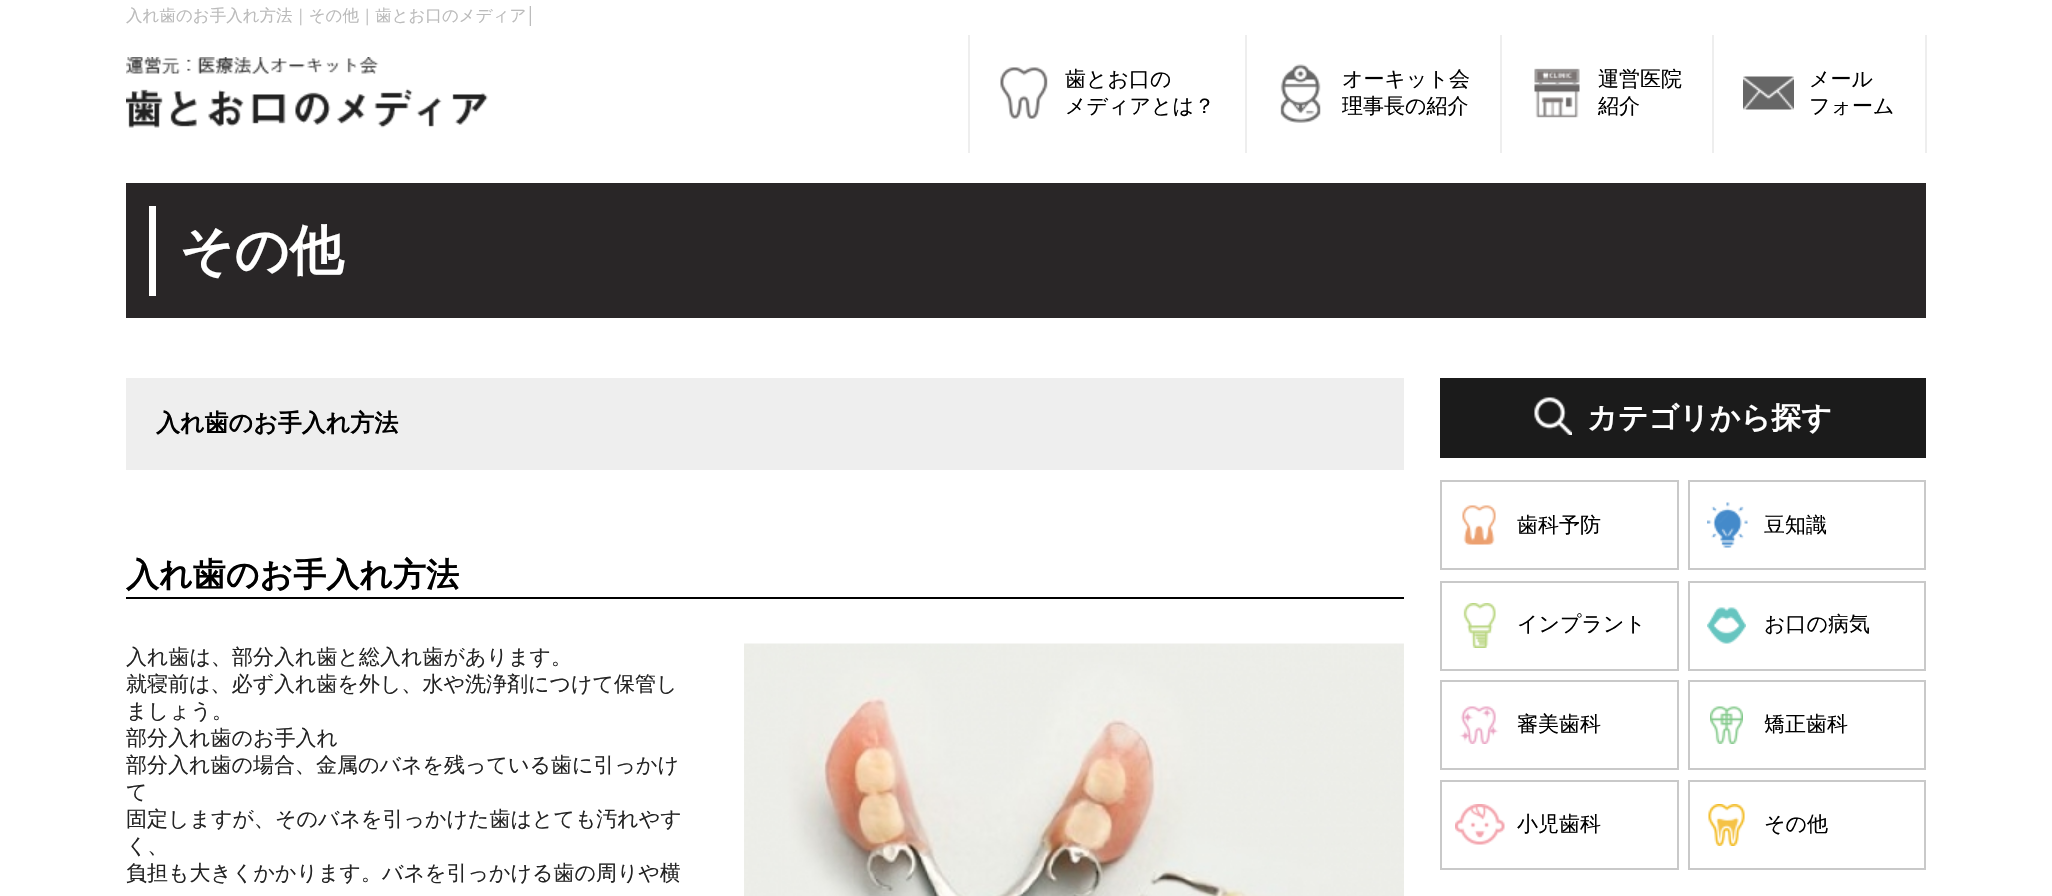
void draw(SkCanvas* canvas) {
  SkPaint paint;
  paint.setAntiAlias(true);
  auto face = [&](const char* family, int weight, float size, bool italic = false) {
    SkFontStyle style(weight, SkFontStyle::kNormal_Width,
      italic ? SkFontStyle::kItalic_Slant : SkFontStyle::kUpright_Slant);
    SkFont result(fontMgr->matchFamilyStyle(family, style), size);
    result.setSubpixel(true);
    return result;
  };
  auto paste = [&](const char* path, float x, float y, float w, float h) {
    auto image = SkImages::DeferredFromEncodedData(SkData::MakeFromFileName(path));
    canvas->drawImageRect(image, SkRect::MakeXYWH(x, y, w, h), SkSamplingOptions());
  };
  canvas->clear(0xffffffff);
  paste("img/1.png", 126, 57, 362, 71);
  paint.setColor(0xffeeeeee);
  canvas->drawRect(SkRect::MakeXYWH(968, 35, 2, 118), paint);
  paste("img/2.png", 1000, 67, 48, 52);
  canvas->drawRect(SkRect::MakeXYWH(1245, 35, 2, 118), paint);
  paste("img/3.png", 1280, 64, 41, 59);
  canvas->drawRect(SkRect::MakeXYWH(1500, 35, 2, 118), paint);
  paste("img/4.png", 1534, 68, 46, 50);
  canvas->drawRect(SkRect::MakeXYWH(1925, 35, 2, 118), paint);
  canvas->drawRect(SkRect::MakeXYWH(1712, 35, 2, 118), paint);
  paste("img/5.png", 1743, 76, 51, 34);
  {
    const struct { float x, y, w, h; SkColor color; } items[] = {
      {126, 183, 1800, 135, 0xff292627},
      {149, 206, 7, 90, 0xffffffff},
      {126, 378, 1278, 92, 0xffeeeeee},
      {126, 597, 1278, 2, 0xff000000},
    };
    for (auto [x, y, w, h, color] : items) {
      paint.setColor(color);
      canvas->drawRect(SkRect::MakeXYWH(x, y, w, h), paint);
    }
  }
  paste("img/6.png", 744, 643, 660, 253);
  paint.setColor(0xff1b1b1b);
  canvas->drawRect(SkRect::MakeXYWH(1440, 378, 486, 80), paint);
  paste("img/7.png", 1534, 397, 38, 38);
  paint.setStroke(true);
  paint.setStrokeWidth(2);
  paint.setColor(0xffc9c9c9);
  canvas->drawRect(SkRect::MakeXYWH(1441, 481, 237, 88), paint);
  paste("img/8.png", 1462, 505, 34, 40);
  canvas->drawRect(SkRect::MakeXYWH(1689, 481, 236, 88), paint);
  paste("img/9.png", 1707, 502, 41, 46);
  canvas->drawRect(SkRect::MakeXYWH(1441, 582, 237, 88), paint);
  paste("img/10.png", 1463, 603, 33, 45);
  canvas->drawRect(SkRect::MakeXYWH(1689, 582, 236, 88), paint);
  paste("img/11.png", 1707, 607, 39, 37);
  canvas->drawRect(SkRect::MakeXYWH(1441, 681, 237, 88), paint);
  paste("img/12.png", 1459, 706, 40, 38);
  canvas->drawRect(SkRect::MakeXYWH(1689, 681, 236, 88), paint);
  paste("img/13.png", 1710, 706, 33, 38);
  canvas->drawRect(SkRect::MakeXYWH(1441, 781, 237, 88), paint);
  paste("img/14.png", 1455, 804, 50, 41);
  canvas->drawRect(SkRect::MakeXYWH(1689, 781, 236, 88), paint);
  paste("img/15.png", 1708, 804, 37, 42);
  auto f0 = face("WenQuanYi Zen Hei", 500, 16.5f);
  paint.setStroke(false);
  paint.setColor(0xffbbbbbb);
  canvas->drawString("入れ歯のお手入れ方法｜その他｜歯とお口のメディア", 126, 21, f0, paint);
  auto f1 = face("Liberation Sans", 400, 16.5f);
  canvas->drawString("│", 526, 21, f1, paint);
  auto f2 = face("WenQuanYi Zen Hei", 500, 21);
  paint.setColor(0xff000000);
  {
    const struct { const char* s; float x, y; } items[] = {
      {"歯とお口の", 1065, 86},
      {"メディアとは？", 1065, 113},
      {"オーキット会", 1342, 86},
      {"理事長の紹介", 1342, 113},
      {"運営医院", 1598, 86},
      {"紹介", 1598, 113},
      {"メール", 1809, 86},
      {"フォーム", 1809, 113},
    };
    for (auto [s, x, y] : items) {
      canvas->drawString(s, x, y, f2, paint);
    }
  }
  auto f3 = face("WenQuanYi Zen Hei", 700, 54);
  paint.setColor(0xffffffff);
  canvas->drawString("その他", 179, 269, f3, paint);
  auto f4 = face("WenQuanYi Zen Hei", 700, 24);
  paint.setColor(0xff000000);
  canvas->drawString("入れ歯のお手入れ方法", 156, 431, f4, paint);
  auto f5 = face("WenQuanYi Zen Hei", 700, 33);
  canvas->drawString("入れ歯のお手入れ方法", 126, 586, f5, paint);
  paint.setColor(0xff242424);
  {
    const struct { const char* s; float x, y; } items[] = {
      {"入れ歯は、部分入れ歯と総入れ歯があります。", 126, 664},
      {"就寝前は、必ず入れ歯を外し、水や洗浄剤につけて保管し", 126, 691},
      {"ましょう。", 126, 718},
      {"部分入れ歯のお手入れ", 126, 745},
      {"部分入れ歯の場合、金属のバネを残っている歯に引っかけ", 126, 772},
      {"て", 126, 799},
      {"固定しますが、そのバネを引っかけた歯はとても汚れやす", 126, 826},
      {"く、", 126, 853},
      {"負担も大きくかかります。バネを引っかける歯の周りや横", 126, 880},
    };
    for (auto [s, x, y] : items) {
      canvas->drawString(s, x, y, f2, paint);
    }
  }
  auto f6 = face("WenQuanYi Zen Hei", 700, 30);
  paint.setColor(0xffffffff);
  canvas->drawString("カテゴリから探す", 1587, 428, f6, paint);
  paint.setColor(0xff000000);
  {
    const struct { const char* s; float x, y; } items[] = {
      {"歯科予防", 1517, 532},
      {"豆知識", 1764, 532},
      {"インプラント", 1517, 631},
      {"お口の病気", 1764, 631},
      {"審美歯科", 1517, 731},
      {"矯正歯科", 1764, 731},
      {"小児歯科", 1517, 831},
      {"その他", 1764, 831},
    };
    for (auto [s, x, y] : items) {
      canvas->drawString(s, x, y, f2, paint);
    }
  }
}
